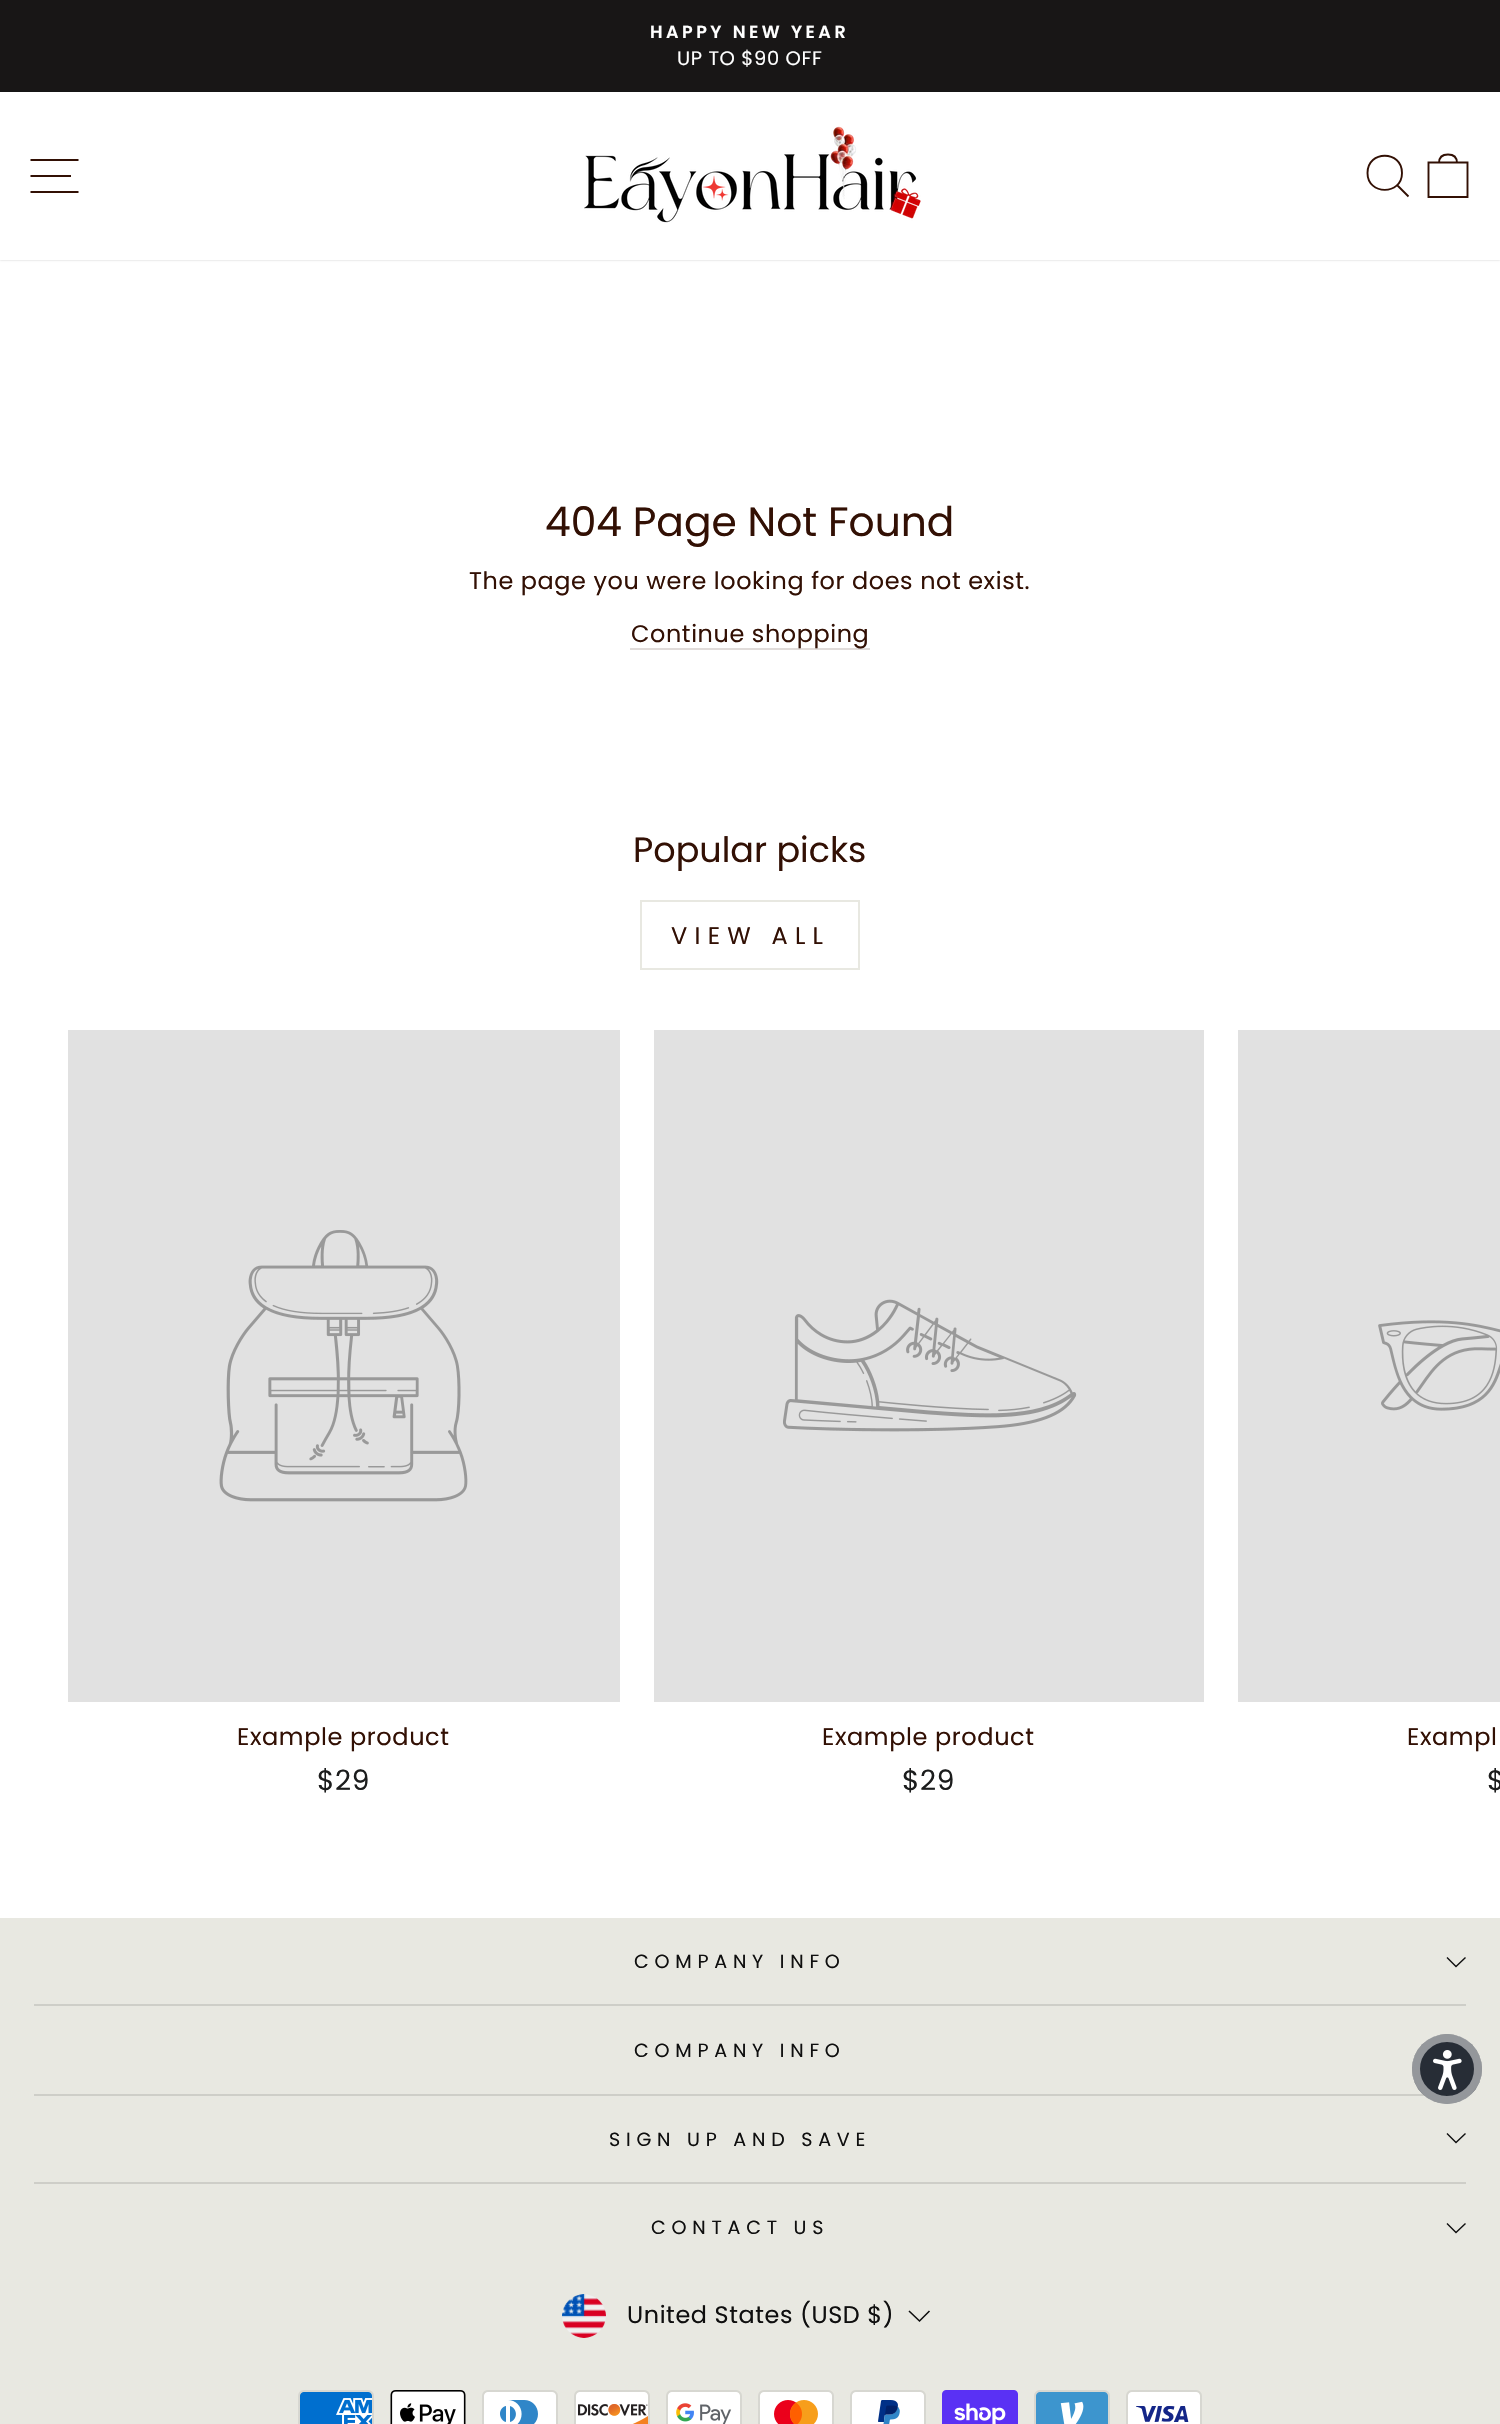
void draw(SkCanvas* canvas) {
  SkPaint paint;
  paint.setAntiAlias(true);
  auto face = [&](const char* family, int weight, float size, bool italic = false) {
    SkFontStyle style(weight, SkFontStyle::kNormal_Width,
      italic ? SkFontStyle::kItalic_Slant : SkFontStyle::kUpright_Slant);
    SkFont result(fontMgr->matchFamilyStyle(family, style), size);
    result.setSubpixel(true);
    return result;
  };
  auto writeSpaced = [&](const char* s, float x, float y, const SkFont& font, const SkPaint& ink, float letter, float word) {
    std::vector<SkGlyphID> glyphs(font.countText(s, strlen(s), SkTextEncoding::kUTF8));
    std::vector<float> xs(glyphs.size());
    font.textToGlyphs(s, strlen(s), SkTextEncoding::kUTF8, glyphs);
    font.getXPos(glyphs, xs, x);
    float extra = 0;
    for (size_t i = 0; i < glyphs.size(); i++) {
      xs[i] += extra;
      extra += letter + word * (glyphs[i] == font.unicharToGlyph(' '));
    }
    canvas->drawTextBlob(SkTextBlob::MakeFromPosHGlyphs(glyphs, xs, y, font), 0, 0, ink);
  };
  auto paste = [&](const char* path, float x, float y, float w, float h) {
    auto image = SkImages::DeferredFromEncodedData(SkData::MakeFromFileName(path));
    canvas->drawImageRect(image, SkRect::MakeXYWH(x, y, w, h), SkSamplingOptions());
  };
  auto shape = [&](const char* data, bool evenOdd = false) {
    SkPath result = *SkParsePath::FromSVGString(data);
    if (evenOdd) result.setFillType(SkPathFillType::kEvenOdd);
    return result;
  };
  canvas->clear(0xffffffff);
  paint.setColor(0xff181616);
  canvas->drawRect(SkRect::MakeXYWH(0, 0, 1500, 92), paint);
  canvas->save();
  canvas->clipPath(shape("M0 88H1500V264H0ZM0 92H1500V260H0Z", true), true);
  paint.setColor(0x33000000);
  paint.setMaskFilter(SkMaskFilter::MakeBlur(kNormal_SkBlurStyle, 1));
  canvas->drawRect(SkRect::MakeXYWH(0, 92, 1500, 168), paint);
  paint.setMaskFilter(nullptr);
  canvas->restore();
  paint.setStroke(true);
  paint.setStrokeWidth(1.9f);
  paint.setColor(0xff321004);
  canvas->drawPath(shape("M30.5 160H78.5M30.5 176H71M30.5 192H78.5"), paint);
  paste("img/1.png", 584, 126, 337, 97);
  canvas->drawPath(shape("M1402 173C1402 195.5 1367.5 195.5 1367.5 173C1367.5 150 1402 150 1402 173ZM1408.5 196.5L1397.5 185.5"), paint);
  canvas->drawPath(shape("M1428.5 162.5H1467.5V197H1428.5ZM1439 163C1439 156 1443 154.5 1448 154.5C1453 154.5 1457 156 1457 163"), paint);
  paint.setStroke(false);
  paint.setColor(0xffe0dbd9);
  canvas->drawRect(SkRect::MakeXYWH(630, 648, 240, 2), paint);
  paint.setStroke(true);
  paint.setStrokeWidth(2);
  paint.setColor(0xffe8e8e1);
  canvas->drawRect(SkRect::MakeXYWH(641, 901, 218, 68), paint);
  paint.setStroke(false);
  paint.setColor(0xffe1e1e1);
  canvas->drawRect(SkRect::MakeXYWH(68, 1030, 552, 672), paint);
  paste("img/2.png", 219, 1230, 249, 272);
  canvas->drawRect(SkRect::MakeXYWH(654, 1030, 550, 672), paint);
  paste("img/3.png", 783, 1299, 294, 133);
  canvas->drawRect(SkRect::MakeXYWH(1238, 1030, 262, 672), paint);
  paste("img/4.png", 1378, 1320, 122, 91);
  paint.setColor(0xffe8e8e1);
  canvas->drawRect(SkRect::MakeXYWH(0, 1918, 1500, 506), paint);
  paint.setStroke(true);
  paint.setStrokeWidth(1.4f);
  paint.setColor(0xff0f0f0f);
  canvas->drawPath(shape("M1447 1957.5L1456 1966.5L1465.5 1957.5"), paint);
  paint.setStroke(false);
  paint.setColor(0xffcecec8);
  canvas->drawRect(SkRect::MakeXYWH(34, 2004, 1432, 2), paint);
  canvas->drawRect(SkRect::MakeXYWH(34, 2094, 1391, 2), paint);
  paint.setStroke(true);
  paint.setColor(0xff0f0f0f);
  canvas->drawPath(shape("M1447 2133.5L1456 2142.5L1465.5 2133.5"), paint);
  paint.setStroke(false);
  paint.setColor(0xffcecec8);
  canvas->drawRect(SkRect::MakeXYWH(34, 2182, 1432, 2), paint);
  paint.setStroke(true);
  paint.setColor(0xff0f0f0f);
  canvas->drawPath(shape("M1447 2223.5L1456 2232.5L1465.5 2223.5"), paint);
  paste("img/5.png", 562, 2294, 44, 44);
  paint.setStrokeWidth(1.6f);
  canvas->drawPath(shape("M909 2311L919.5 2321L929.5 2311"), paint);
  paste("img/6.png", 298, 2390, 76, 34);
  paste("img/7.png", 390, 2390, 76, 34);
  paste("img/8.png", 482, 2390, 76, 34);
  paste("img/9.png", 574, 2390, 76, 34);
  paste("img/10.png", 666, 2390, 76, 34);
  paste("img/11.png", 758, 2390, 76, 34);
  paste("img/12.png", 850, 2390, 76, 34);
  paste("img/13.png", 942, 2390, 76, 34);
  paste("img/14.png", 1034, 2390, 76, 34);
  paste("img/15.png", 1126, 2390, 76, 34);
  paint.setStroke(false);
  paint.setColor(0xff272d36);
  canvas->drawCircle(1447, 2069, 35, paint);
  paint.setStroke(true);
  paint.setStrokeWidth(8);
  paint.setColor(0x80ffffff);
  canvas->drawCircle(1447, 2069, 31, paint);
  paste("img/16.png", 1433, 2050, 29, 40);
  auto f0 = face("Poppins", 600, 17.5f);
  paint.setStroke(false);
  paint.setColor(0xffffffff);
  writeSpaced("HAPPY NEW YEAR", 650, 38, f0, paint, 3.5f, 0);
  auto f1 = face("Poppins", 400, 19.5f);
  writeSpaced("UP TO $90 OFF", 677, 65, f1, paint, 0.6f, 0);
  auto f2 = face("Poppins", 400, 40.75f);
  paint.setColor(0xff321004);
  canvas->drawString("404 Page Not Found", 545, 536, f2, paint);
  auto f3 = face("Poppins", 400, 23.9f);
  writeSpaced("The page you were looking for does not exist.", 469, 589, f3, paint, 0.6f, 0);
  writeSpaced("Continue shopping", 631, 642, f3, paint, 0.6f, 0);
  auto f4 = face("Poppins", 400, 35);
  canvas->drawString("Popular picks", 633, 862, f4, paint);
  auto f5 = face("Poppins", 400, 24);
  writeSpaced("VIEW ALL", 671, 944, f5, paint, 7.25f, 0);
  writeSpaced("Example product", 237, 1745, f5, paint, 0.6f, 0);
  auto f6 = face("Poppins", 400, 28);
  paint.setColor(0xff1c1d1d);
  writeSpaced("$29", 317, 1790, f6, paint, 0.6f, 0);
  paint.setColor(0xff321004);
  writeSpaced("Example product", 822, 1745, f5, paint, 0.6f, 0);
  paint.setColor(0xff1c1d1d);
  writeSpaced("$29", 902, 1790, f6, paint, 0.6f, 0);
  paint.setColor(0xff321004);
  writeSpaced("Exampl", 1407, 1745, f5, paint, 0.6f, 0);
  paint.setColor(0xff1c1d1d);
  writeSpaced("$", 1487, 1790, f6, paint, 0.6f, 0);
  auto f7 = face("Poppins", 400, 19.1f);
  paint.setColor(0xff0f0f0f);
  {
    const struct { const char* s; float x, y; } items[] = {
      {"COMPANY INFO", 634, 1968},
      {"COMPANY INFO", 634, 2057},
      {"SIGN UP AND SAVE", 609, 2146},
      {"CONTACT US", 651, 2234},
    };
    for (auto [s, x, y] : items) {
      writeSpaced(s, x, y, f7, paint, 5.75f, 0);
    }
  }
  writeSpaced("United States (USD $)", 627, 2323, f3, paint, 0.6f, 0);
}
